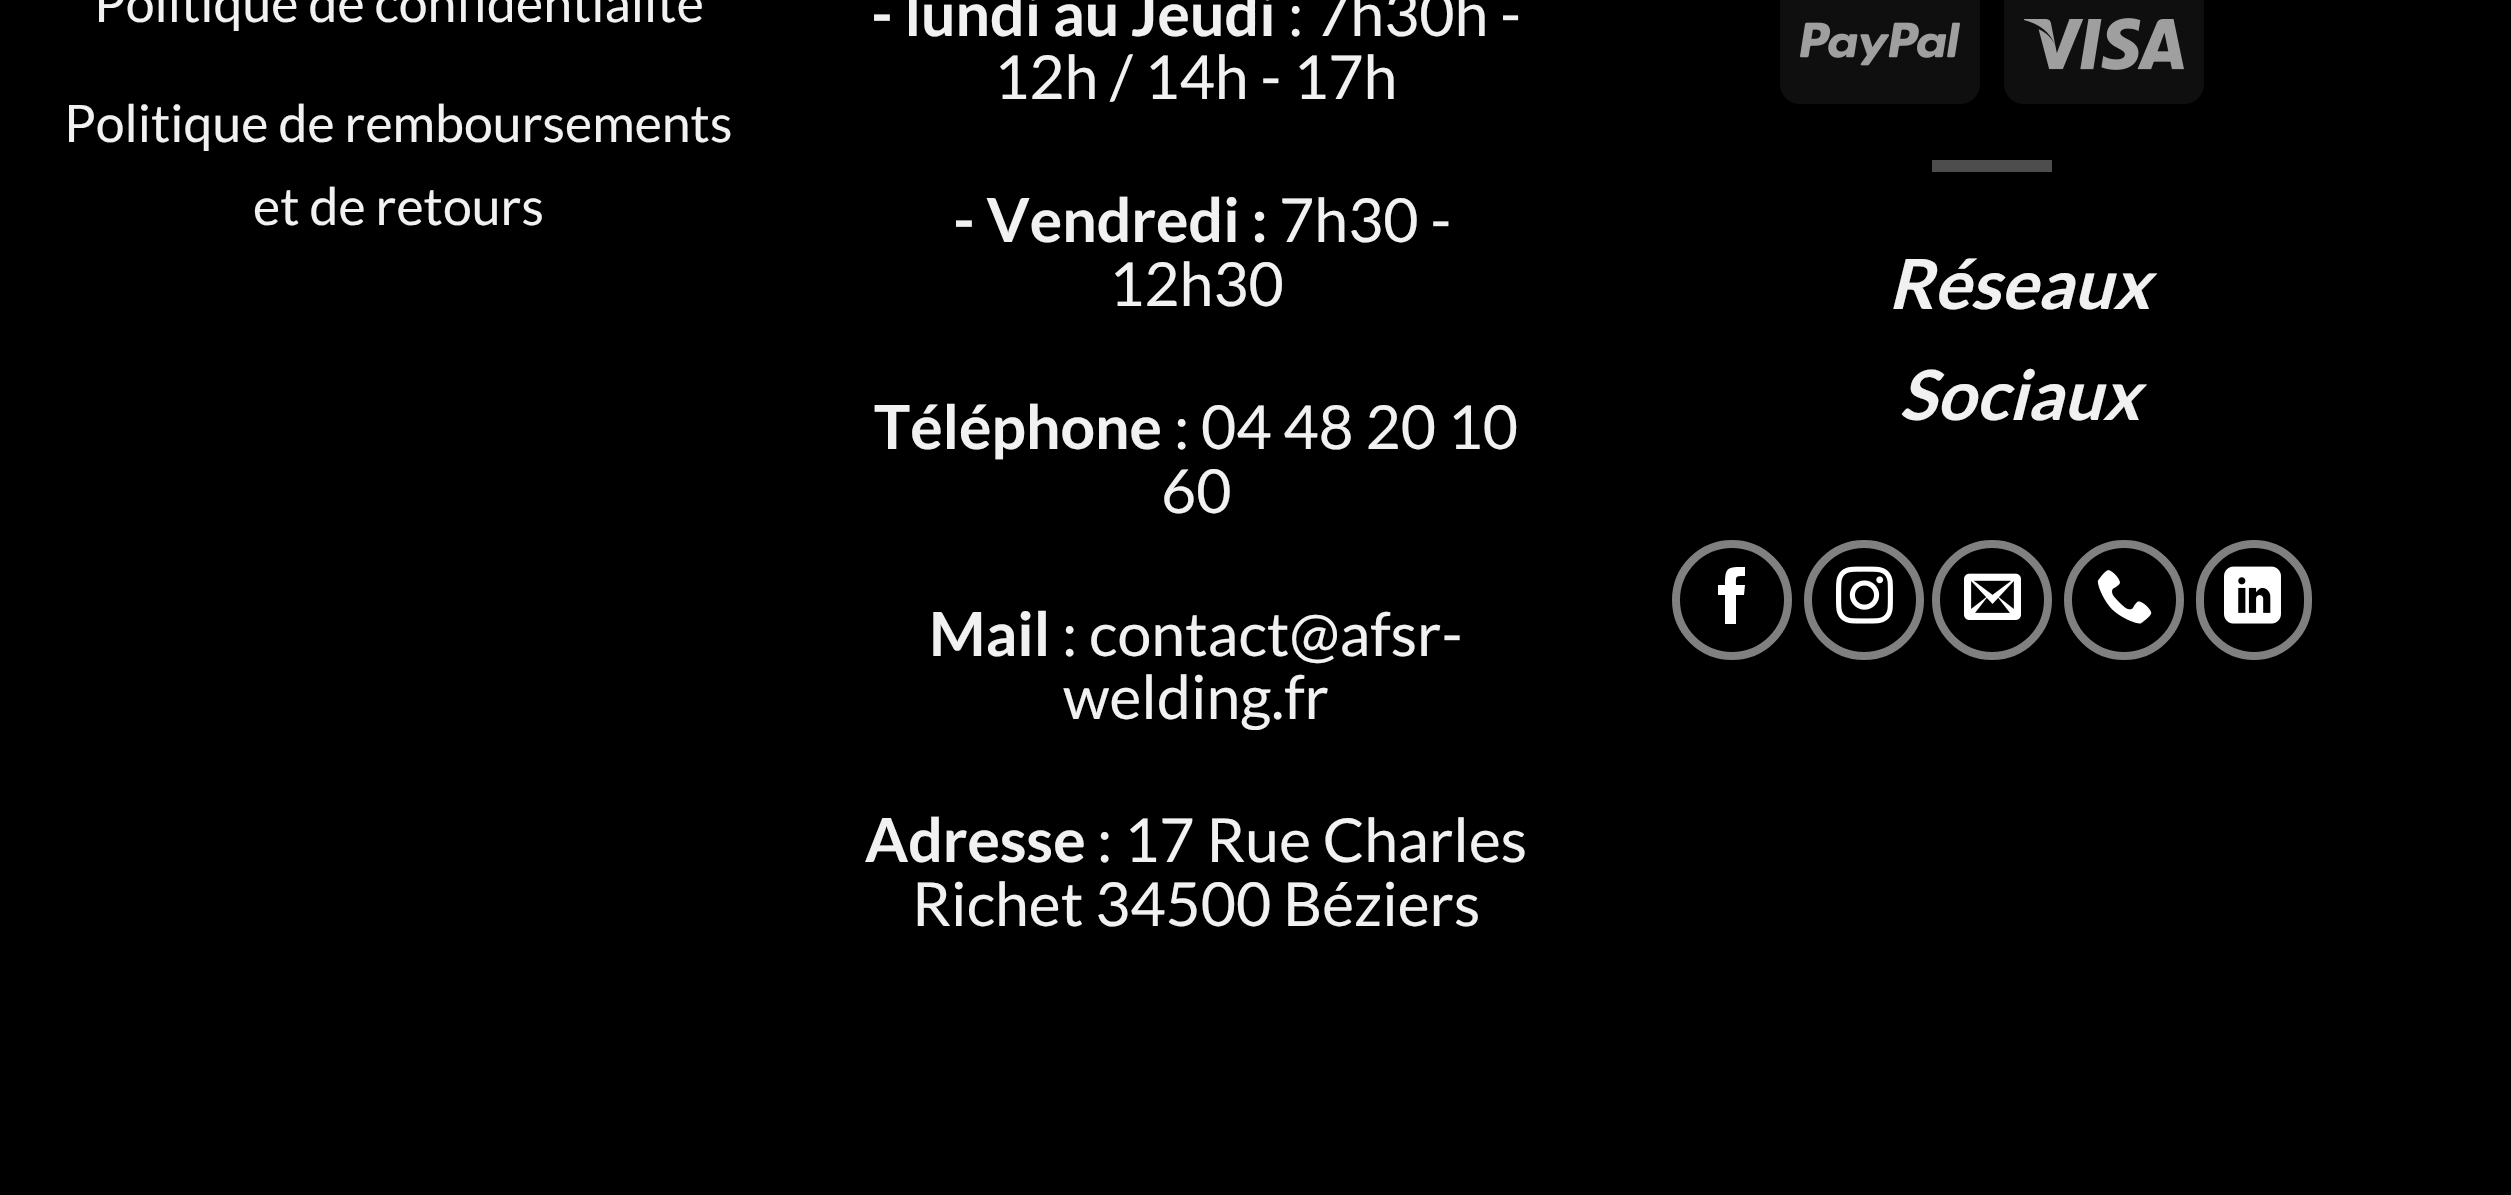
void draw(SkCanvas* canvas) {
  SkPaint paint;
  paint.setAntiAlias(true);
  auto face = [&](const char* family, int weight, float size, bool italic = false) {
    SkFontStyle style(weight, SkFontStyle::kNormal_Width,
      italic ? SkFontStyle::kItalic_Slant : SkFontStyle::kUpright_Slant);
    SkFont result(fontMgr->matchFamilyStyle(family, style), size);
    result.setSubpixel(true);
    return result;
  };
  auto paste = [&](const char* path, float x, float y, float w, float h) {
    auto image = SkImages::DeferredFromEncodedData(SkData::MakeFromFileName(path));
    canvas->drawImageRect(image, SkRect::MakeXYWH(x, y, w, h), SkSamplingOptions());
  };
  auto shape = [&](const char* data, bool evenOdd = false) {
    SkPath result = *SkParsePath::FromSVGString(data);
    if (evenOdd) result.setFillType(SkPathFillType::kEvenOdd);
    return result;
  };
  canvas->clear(0xff000000);
  paint.setColor(0xff0f0f0f);
  canvas->drawRoundRect(SkRect::MakeXYWH(1780, -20, 200, 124), 20, 20, paint);
  paste("img/1.png", 1800, 22, 160, 44);
  canvas->drawRoundRect(SkRect::MakeXYWH(2004, -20, 200, 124), 20, 20, paint);
  paste("img/2.png", 2024, 18, 160, 52);
  paint.setColor(0xff4d4d4d);
  canvas->drawRect(SkRect::MakeXYWH(1932, 160, 120, 12), paint);
  paint.setStroke(true);
  paint.setStrokeWidth(8);
  paint.setColor(0xff808080);
  canvas->drawCircle(1732, 600, 56, paint);
  paint.setStroke(false);
  paint.setColor(0xffffffff);
  canvas->drawPath(shape("M1736 624H1725V595H1718V585H1725C1725 567 1727 567 1745 567V576C1735 576 1736 576 1736 585H1745L1744 595H1736Z"), paint);
  paint.setStroke(true);
  paint.setColor(0xff808080);
  canvas->drawCircle(1864, 600, 56, paint);
  paste("img/3.png", 1836, 566, 57, 58);
  canvas->drawCircle(1992, 600, 56, paint);
  paste("img/4.png", 1964, 573, 57, 47);
  canvas->drawCircle(2124, 600, 56, paint);
  paste("img/5.png", 2097, 570, 55, 54);
  canvas->drawRoundRect(SkRect::MakeXYWH(2200, 544, 108, 112), 54, 54, paint);
  paste("img/6.png", 2224, 566, 57, 58);
  auto f0 = face("Lato", 400, 51.8f);
  paint.setStroke(false);
  paint.setColor(0xfff1f1f1);
  {
    const struct { const char* s; float x, y; } items[] = {
      {"Politique de confidentialité", 94, 22},
      {"Politique de remboursements", 64, 142},
      {"et de retours", 253, 225},
    };
    for (auto [s, x, y] : items) {
      canvas->drawString(s, x, y, f0, paint);
    }
  }
  auto f1 = face("Lato", 700, 60.75f);
  canvas->drawString("- lundi au Jeudi", 871, 36, f1, paint);
  auto f2 = face("Lato", 400, 60.75f);
  canvas->drawString(": 7h30h -", 1288, 36, f2, paint);
  canvas->drawString("12h / 14h - 17h", 994, 99, f2, paint);
  canvas->drawString("- Vendredi :", 953, 242, f1, paint);
  canvas->drawString("7h30 -", 1279, 242, f2, paint);
  canvas->drawString("12h30", 1109, 306, f2, paint);
  canvas->drawString("Téléphone", 874, 449, f1, paint);
  canvas->drawString(": 04 48 20 10", 1174, 449, f2, paint);
  canvas->drawString("60", 1161, 513, f2, paint);
  canvas->drawString("Mail", 929, 656, f1, paint);
  canvas->drawString(": contact@afsr-", 1062, 656, f2, paint);
  canvas->drawString("welding.fr", 1063, 719, f2, paint);
  canvas->drawString("Adresse", 865, 862, f1, paint);
  canvas->drawString(": 17 Rue Charles", 1097, 862, f2, paint);
  canvas->drawString("Richet 34500 Béziers", 912, 926, f2, paint);
  auto f3 = face("Lato", 700, 69, true);
  canvas->drawString("Réseaux", 1888, 309, f3, paint);
  canvas->drawString("Sociaux", 1899, 420, f3, paint);
}
